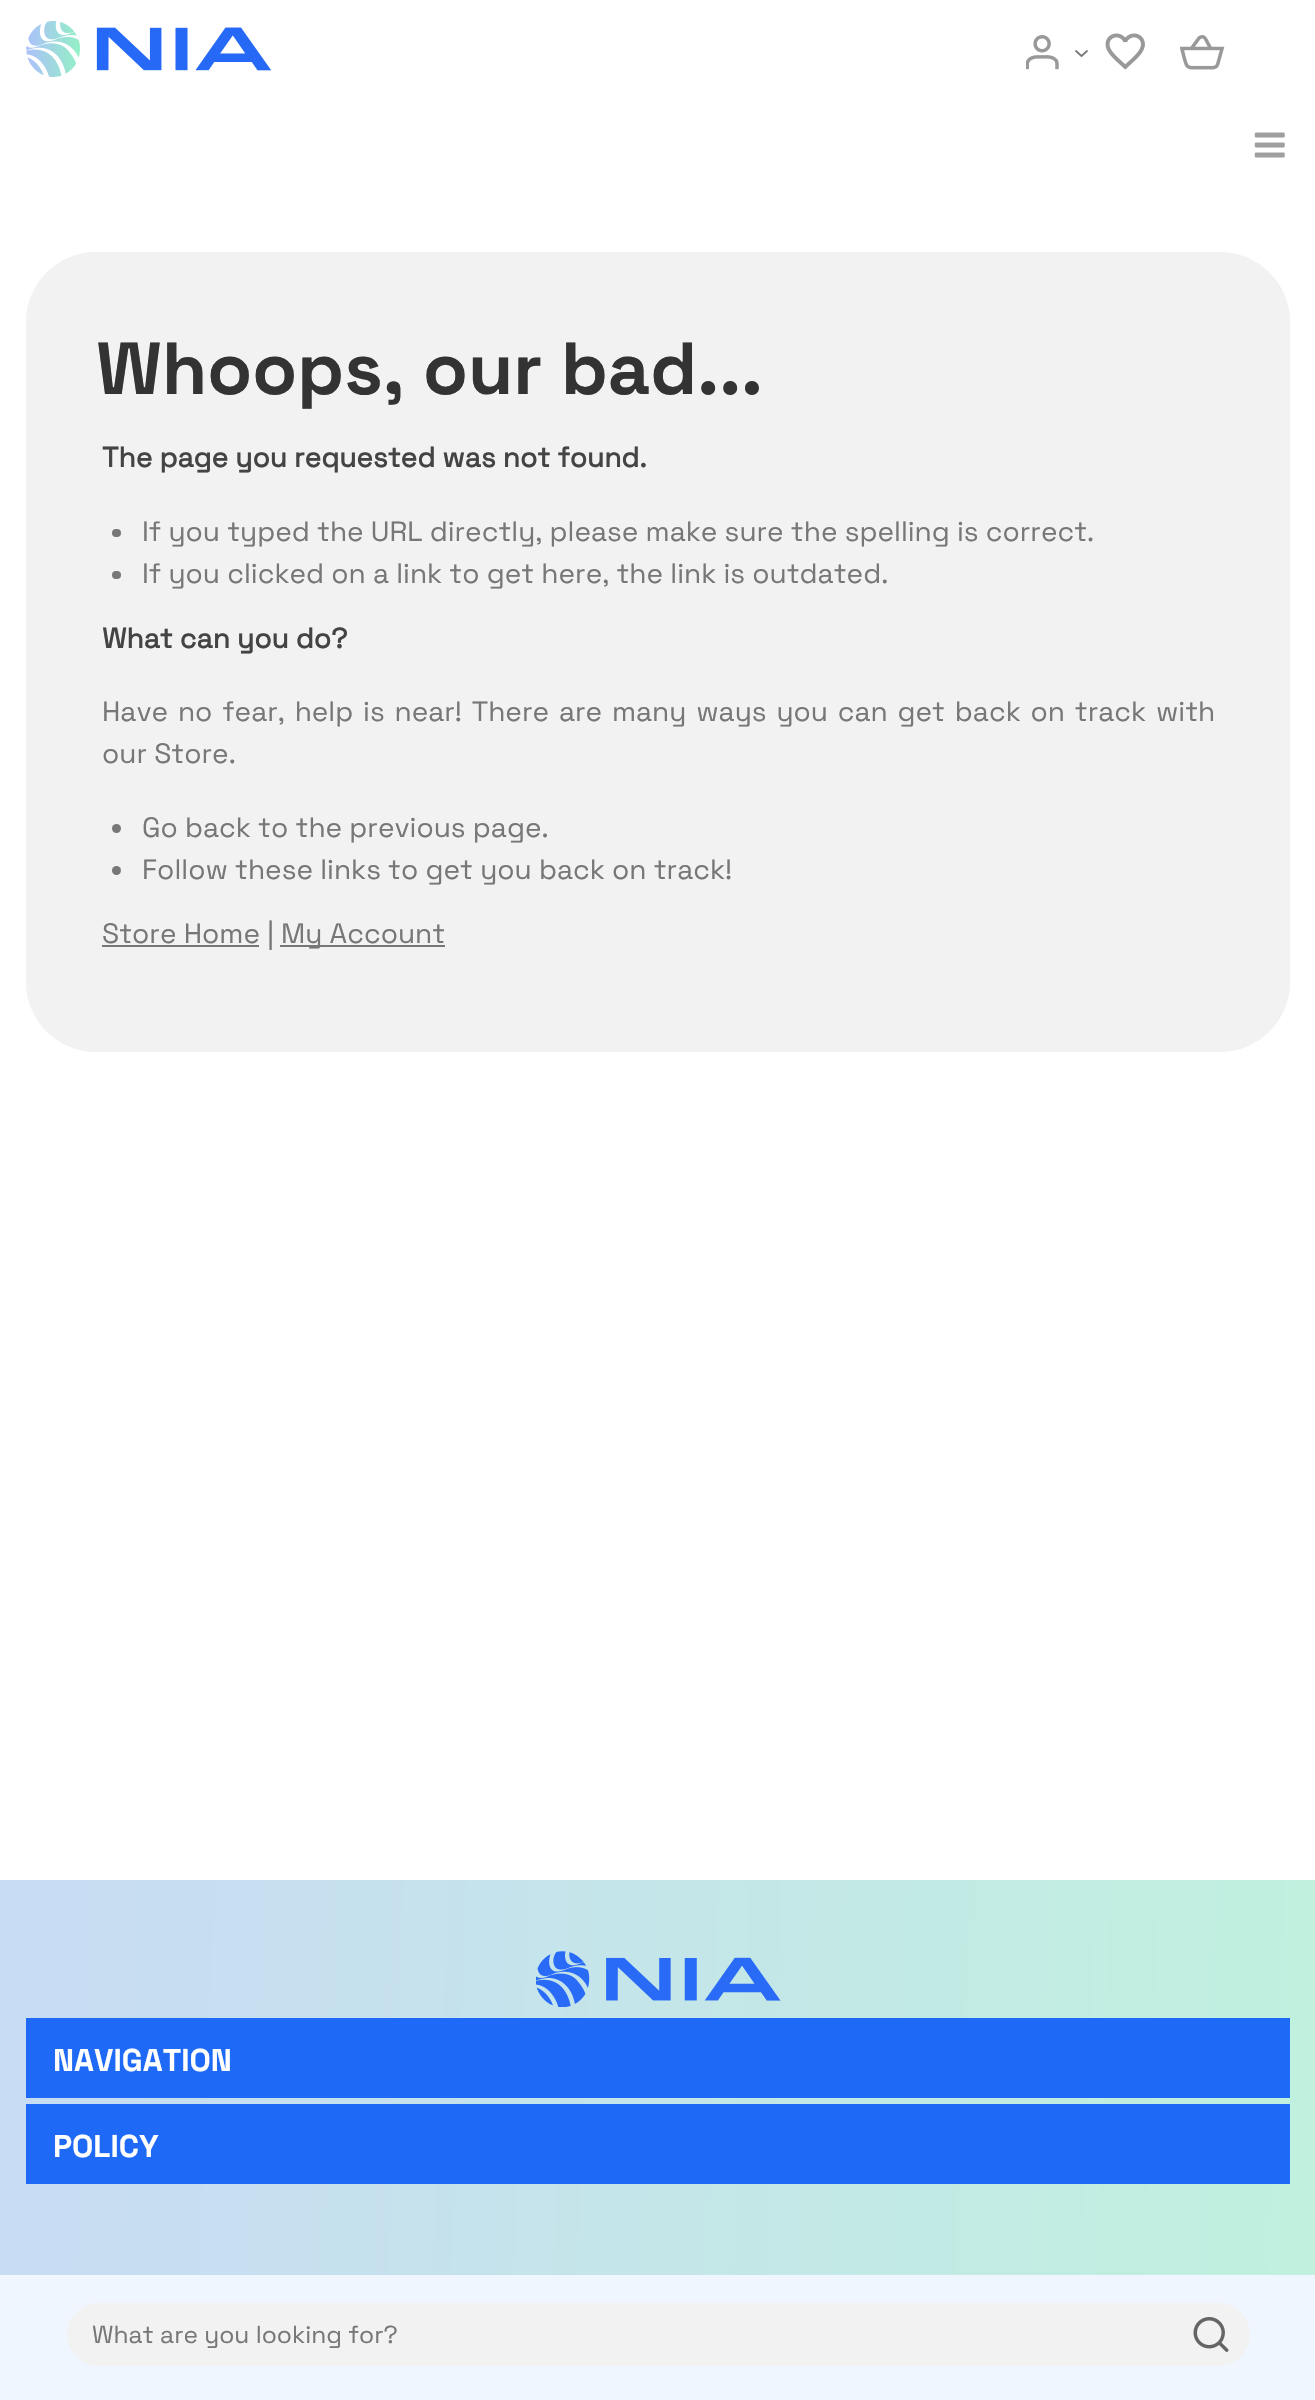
void draw(SkCanvas* canvas) {
  SkPaint paint;
  paint.setAntiAlias(true);
  auto face = [&](const char* family, int weight, float size, bool italic = false) {
    SkFontStyle style(weight, SkFontStyle::kNormal_Width,
      italic ? SkFontStyle::kItalic_Slant : SkFontStyle::kUpright_Slant);
    SkFont result(fontMgr->matchFamilyStyle(family, style), size);
    result.setSubpixel(true);
    return result;
  };
  auto writeSpaced = [&](const char* s, float x, float y, const SkFont& font, const SkPaint& ink, float letter, float word) {
    std::vector<SkGlyphID> glyphs(font.countText(s, strlen(s), SkTextEncoding::kUTF8));
    std::vector<float> xs(glyphs.size());
    font.textToGlyphs(s, strlen(s), SkTextEncoding::kUTF8, glyphs);
    font.getXPos(glyphs, xs, x);
    float extra = 0;
    for (size_t i = 0; i < glyphs.size(); i++) {
      xs[i] += extra;
      extra += letter + word * (glyphs[i] == font.unicharToGlyph(' '));
    }
    canvas->drawTextBlob(SkTextBlob::MakeFromPosHGlyphs(glyphs, xs, y, font), 0, 0, ink);
  };
  auto paste = [&](const char* path, float x, float y, float w, float h) {
    auto image = SkImages::DeferredFromEncodedData(SkData::MakeFromFileName(path));
    canvas->drawImageRect(image, SkRect::MakeXYWH(x, y, w, h), SkSamplingOptions());
  };
  auto shape = [&](const char* data, bool evenOdd = false) {
    SkPath result = *SkParsePath::FromSVGString(data);
    if (evenOdd) result.setFillType(SkPathFillType::kEvenOdd);
    return result;
  };
  canvas->clear(0xffffffff);
  paint.setColor(0xfff2f2f2);
  canvas->drawRoundRect(SkRect::MakeXYWH(26, 252, 1264, 800), 70, 70, paint);
  paint.setColor(0xff777777);
  canvas->drawRoundRect(SkRect::MakeXYWH(112, 529, 9, 8), 4, 4, paint);
  canvas->drawRoundRect(SkRect::MakeXYWH(112, 571, 9, 8), 4, 4, paint);
  canvas->drawCircle(116.5f, 828.5f, 4.5f, paint);
  canvas->drawCircle(116.5f, 870.5f, 4.5f, paint);
  canvas->drawRect(SkRect::MakeXYWH(102, 945, 157, 2), paint);
  canvas->drawRect(SkRect::MakeXYWH(280, 945, 165, 2), paint);
  {
    const SkColor colors[] = {0xffc8dcf3, 0xffbff2dc};
    const float stops[] = {0.04f, 1};
    const SkPoint ends[] = {{-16, 2275}, {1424, 2333}};
    paint.setShader(SkGradientShader::MakeLinear(ends, colors, stops, 2, SkTileMode::kClamp));
    paint.setAlpha(255);
  }
  canvas->drawRect(SkRect::MakeXYWH(0, 1880, 1315, 395), paint);
  paste("img/1.png", 536, 1951, 245, 56);
  paint.setShader(nullptr);
  paint.setColor(0xff1e69f5);
  canvas->drawRect(SkRect::MakeXYWH(26, 2018, 1264, 80), paint);
  canvas->drawRect(SkRect::MakeXYWH(26, 2104, 1264, 80), paint);
  paste("img/2.png", 1254, 132, 31, 26);
  paste("img/3.png", 26, 21, 245, 56);
  paste("img/4.png", 1026, 35, 33, 35);
  paint.setStroke(true);
  paint.setStrokeWidth(1.8f);
  paint.setStrokeCap(SkPaint::kRound_Cap);
  paint.setStrokeJoin(SkPaint::kRound_Join);
  paint.setColor(0xff7a7a7a);
  canvas->drawPath(shape("M1076 51L1081.5 56L1087 51"), paint);
  paste("img/5.png", 1105, 33, 40, 37);
  paste("img/6.png", 1180, 35, 45, 35);
  paint.setStroke(false);
  paint.setColor(0xfff0f6ff);
  canvas->drawRect(SkRect::MakeXYWH(0, 2275, 1315, 125), paint);
  paint.setColor(0xfff2f2f2);
  canvas->drawRoundRect(SkRect::MakeXYWH(67, 2303, 1183, 63), 31.5f, 31.5f, paint);
  paste("img/7.png", 1193, 2317, 36, 35);
  auto f0 = face("Space Grotesk", 700, 73.5f);
  paint.setColor(0xff333333);
  canvas->drawString("Whoops, our bad...", 96, 394, f0, paint);
  auto f1 = face("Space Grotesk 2", 700, 28);
  paint.setColor(0xff444444);
  canvas->drawString("The page you requested was not found.", 102, 467, f1, paint);
  auto f2 = face("Space Grotesk", 400, 28);
  paint.setColor(0xff777777);
  canvas->drawString("If you typed the URL directly, please make sure the spelling is correct.", 142, 541, f2, paint);
  canvas->drawString("If you clicked on a link to get here, the link is outdated.", 142, 583, f2, paint);
  paint.setColor(0xff444444);
  canvas->drawString("What can you do?", 102, 648, f1, paint);
  paint.setColor(0xff777777);
  writeSpaced("Have no fear, help is near! There are many ways you can get back on track with", 102, 721, f2, paint, 0, 2.6f);
  {
    const struct { const char* s; float x, y; } items[] = {
      {"our Store.", 102, 763},
      {"Go back to the previous page.", 142, 837},
      {"Follow these links to get you back on track!", 142, 879},
      {"Store Home |", 102, 943},
      {"My Account", 281, 943},
    };
    for (auto [s, x, y] : items) {
      canvas->drawString(s, x, y, f2, paint);
    }
  }
  auto f3 = face("Space Grotesk", 700, 31.5f);
  paint.setColor(0xffffffff);
  canvas->drawString("NAVIGATION", 53, 2071, f3, paint);
  canvas->drawString("POLICY", 53, 2157, f3, paint);
  auto f4 = face("Space Grotesk", 400, 24.5f);
  paint.setColor(0xff777777);
  canvas->drawString("What are you looking for?", 92, 2343, f4, paint);
}
